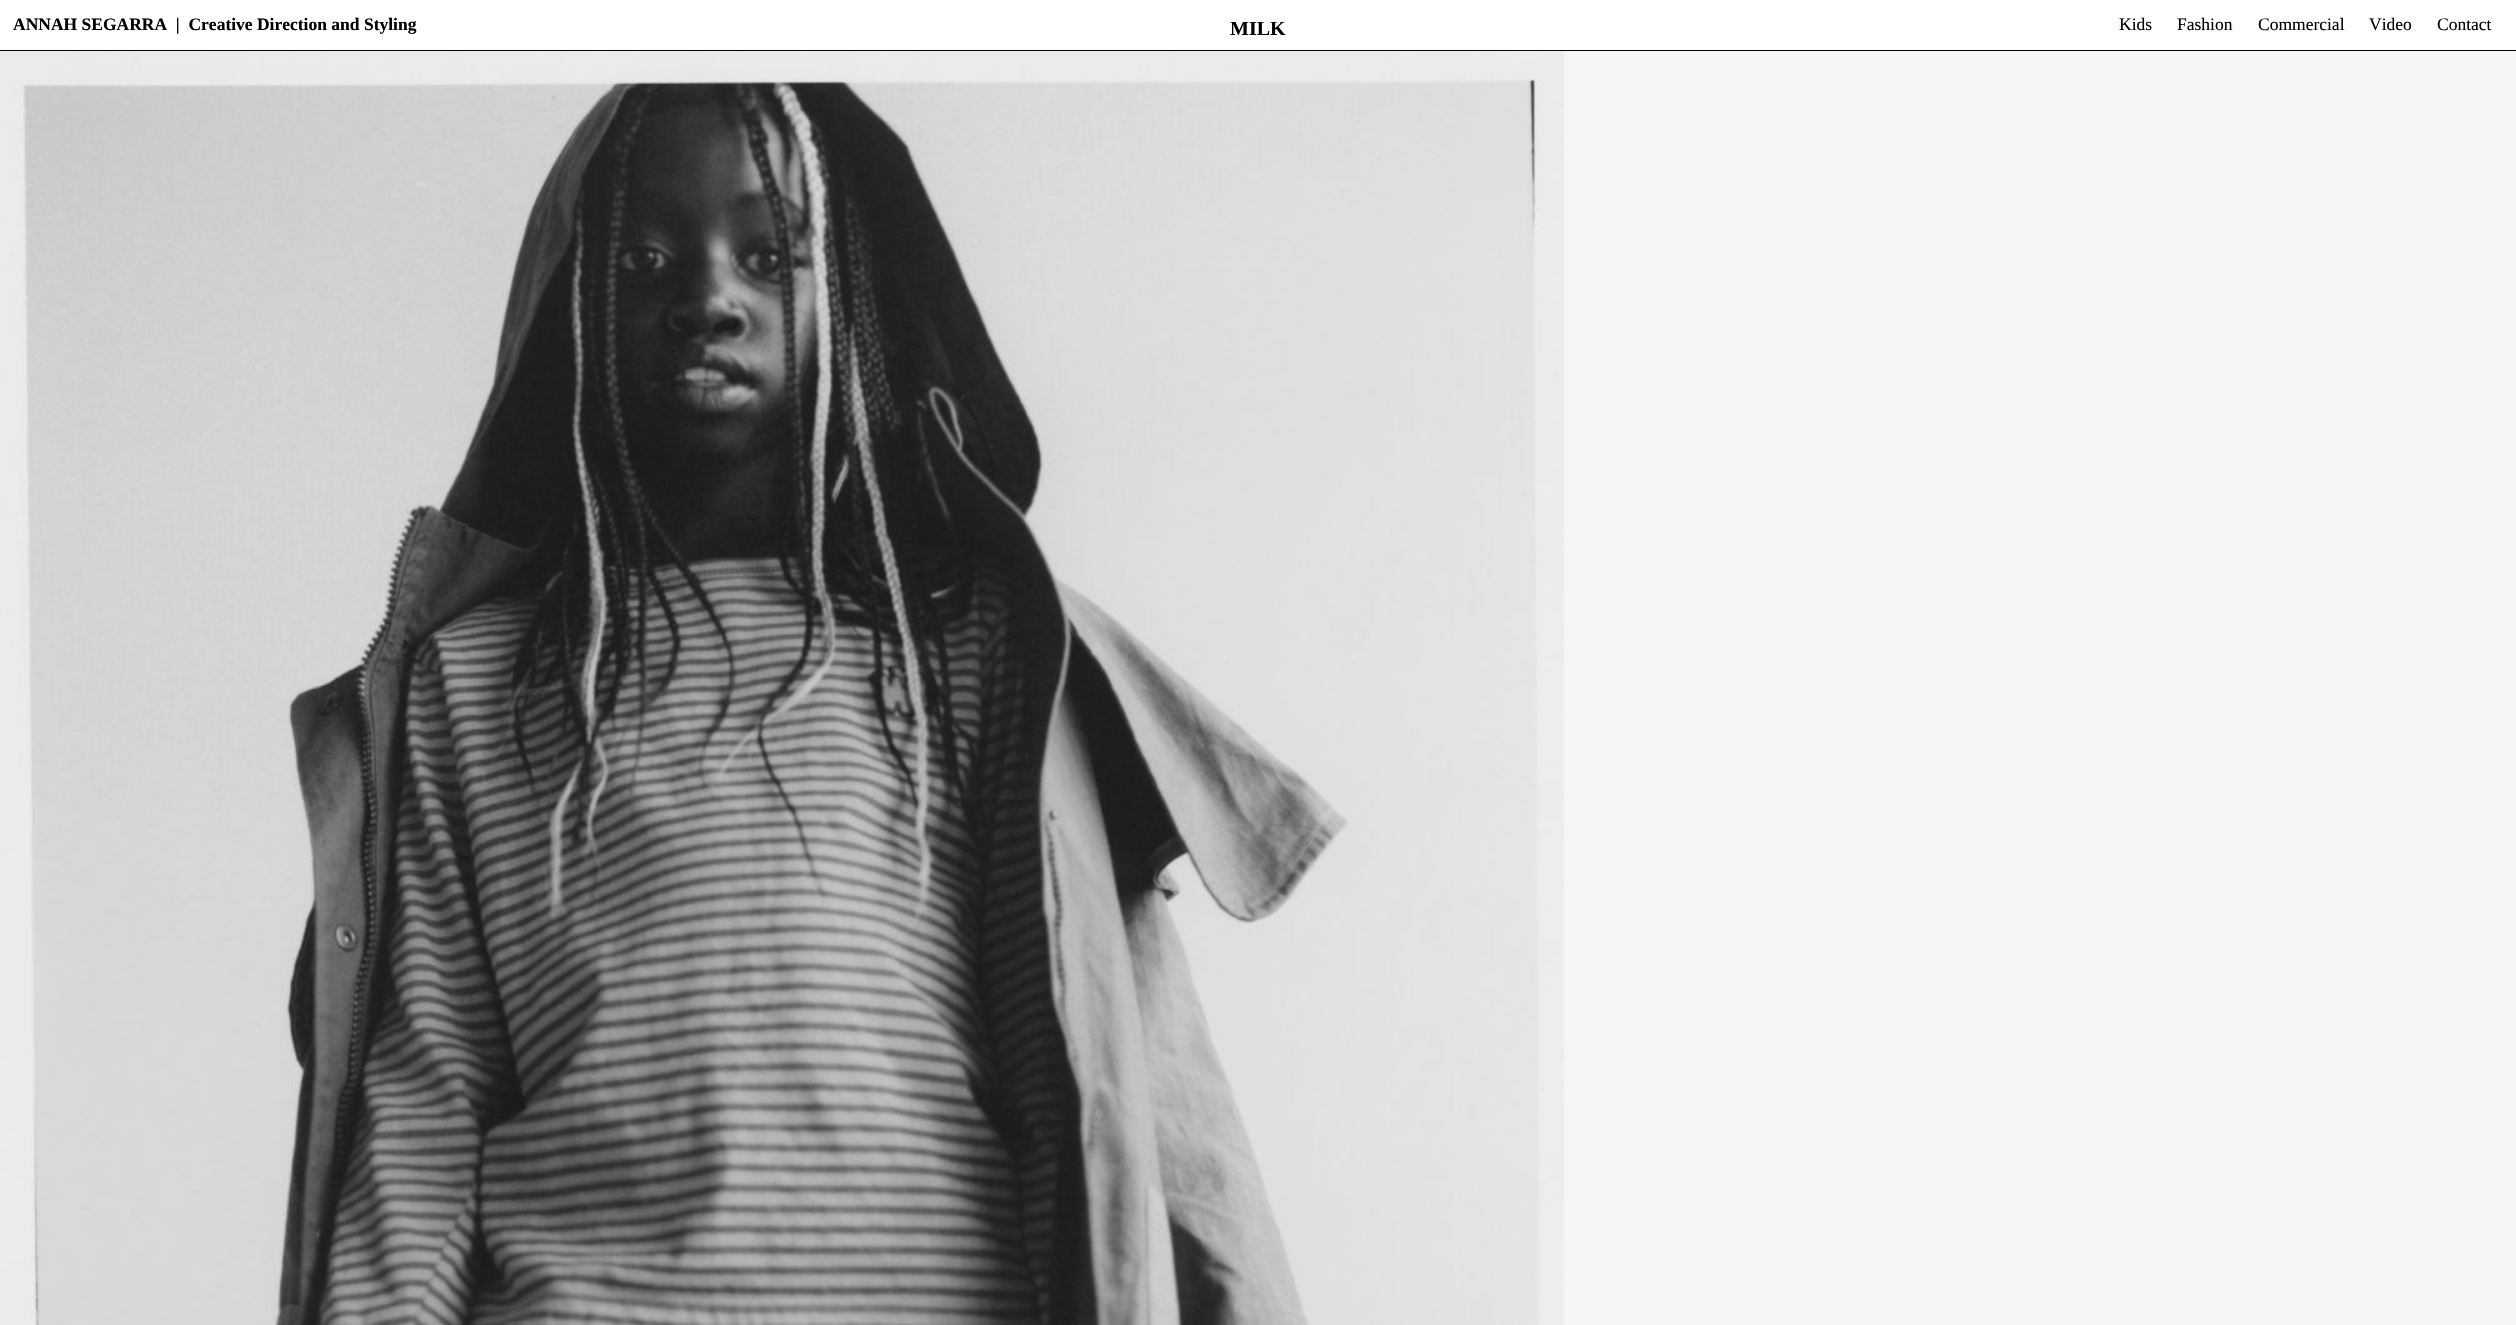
void draw(SkCanvas* canvas) {
  SkPaint paint;
  paint.setAntiAlias(true);
  auto face = [&](const char* family, int weight, float size, bool italic = false) {
    SkFontStyle style(weight, SkFontStyle::kNormal_Width,
      italic ? SkFontStyle::kItalic_Slant : SkFontStyle::kUpright_Slant);
    SkFont result(fontMgr->matchFamilyStyle(family, style), size);
    result.setSubpixel(true);
    return result;
  };
  auto paste = [&](const char* path, float x, float y, float w, float h) {
    auto image = SkImages::DeferredFromEncodedData(SkData::MakeFromFileName(path));
    canvas->drawImageRect(image, SkRect::MakeXYWH(x, y, w, h), SkSamplingOptions());
  };
  canvas->clear(0xfff5f5f5);
  paint.setColor(0xffffffff);
  canvas->drawRect(SkRect::MakeXYWH(0, 0, 2516, 50), paint);
  paint.setColor(0xff000000);
  canvas->drawRect(SkRect::MakeXYWH(0, 50, 2516, 1), paint);
  paste("img/1.png", 0, 51, 1564, 1274);
  auto f0 = face("Liberation Serif", 700, 17.5f);
  canvas->drawString("ANNAH SEGARRA  |  Creative Direction and Styling", 13, 30, f0, paint);
  auto f1 = face("Liberation Serif", 400, 17.5f);
  {
    const struct { const char* s; float x, y; } items[] = {
      {"Kids", 2119, 30},
      {"Fashion", 2177, 30},
      {"Commercial", 2258, 30},
      {"Video", 2369, 30},
      {"Contact", 2437, 30},
    };
    for (auto [s, x, y] : items) {
      canvas->drawString(s, x, y, f1, paint);
    }
  }
  auto f2 = face("Liberation Serif", 700, 20);
  canvas->drawString("MILK", 1230, 35, f2, paint);
}
